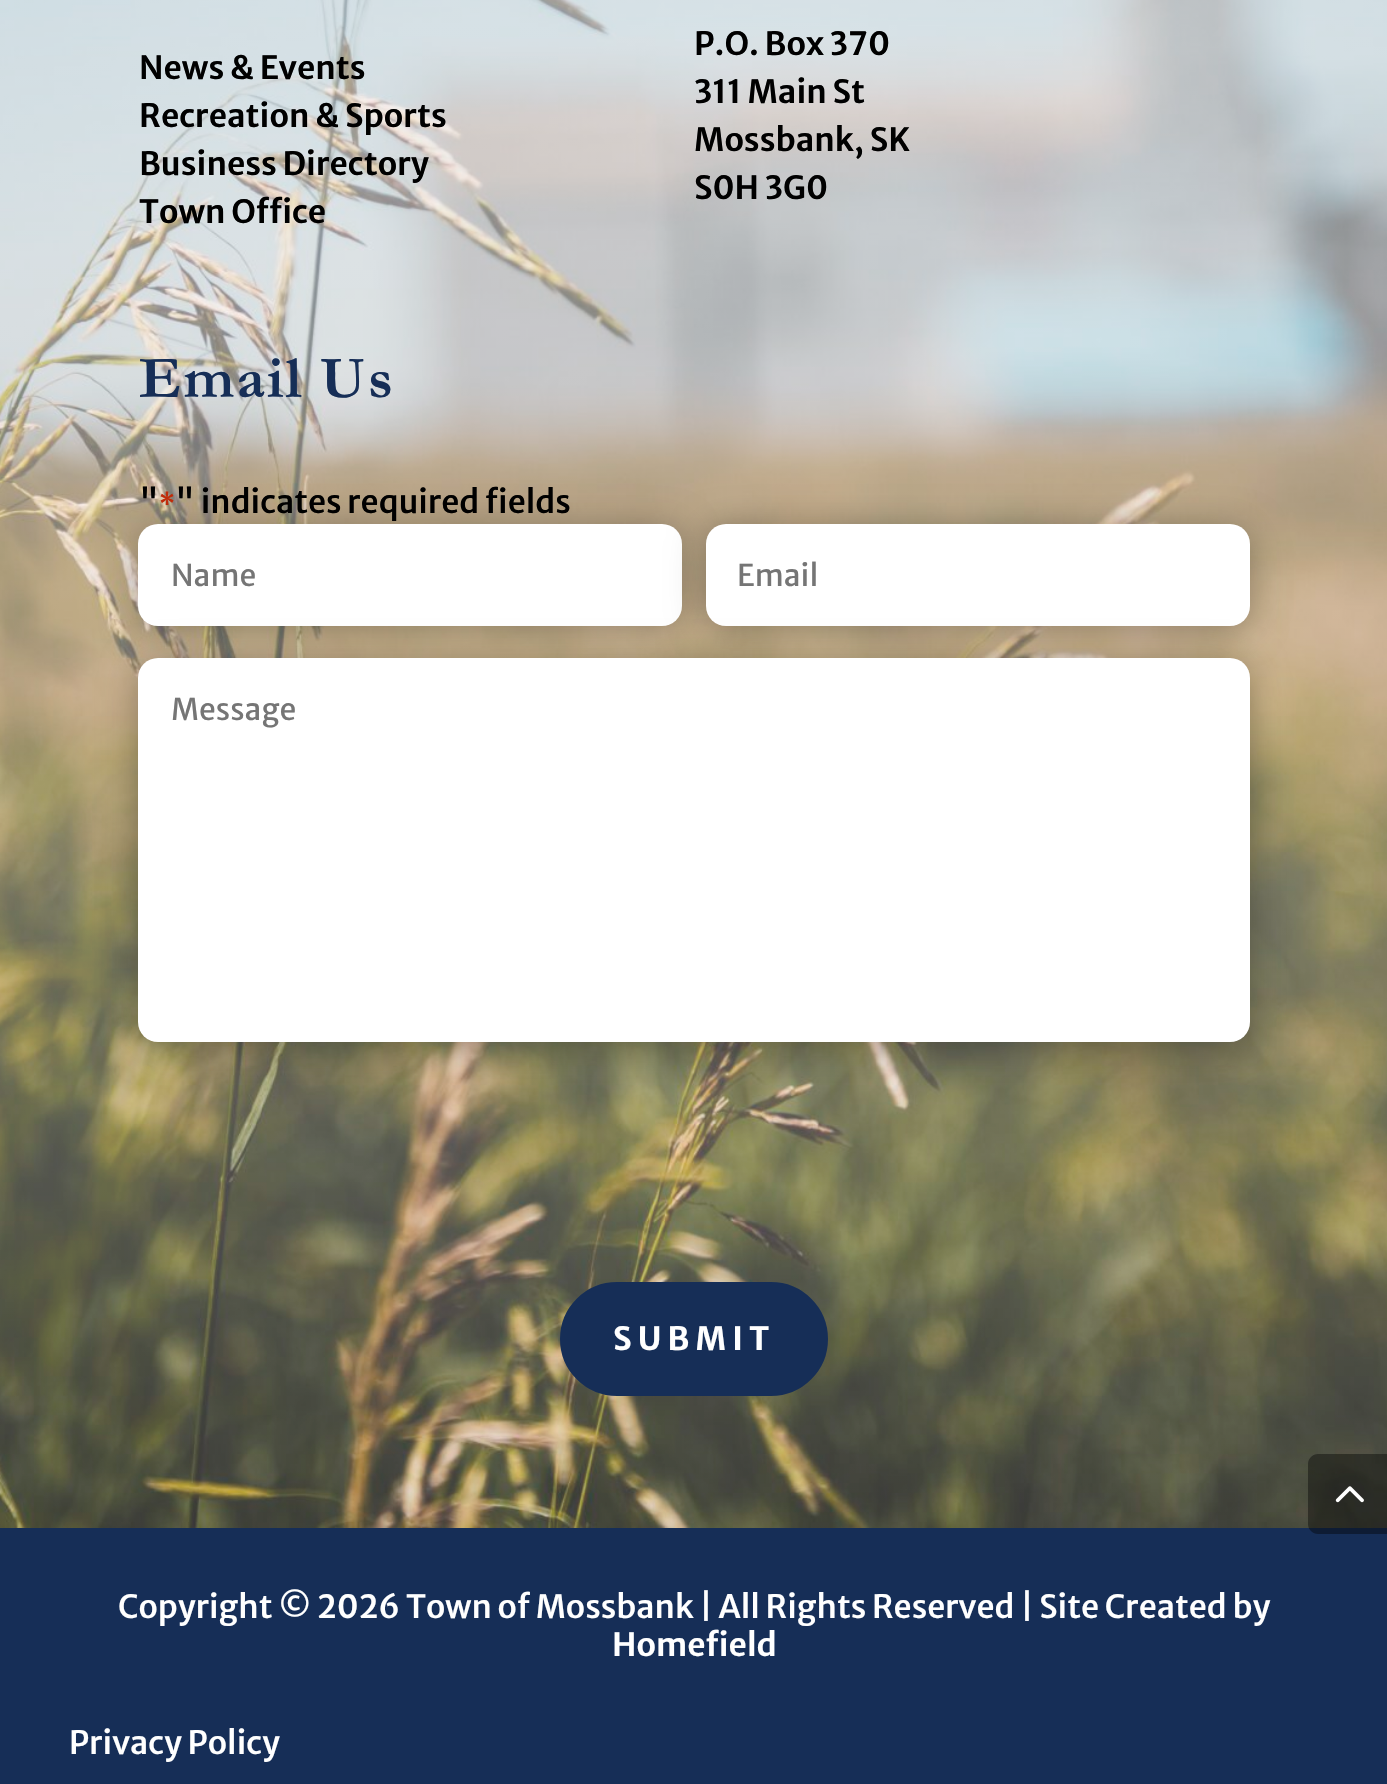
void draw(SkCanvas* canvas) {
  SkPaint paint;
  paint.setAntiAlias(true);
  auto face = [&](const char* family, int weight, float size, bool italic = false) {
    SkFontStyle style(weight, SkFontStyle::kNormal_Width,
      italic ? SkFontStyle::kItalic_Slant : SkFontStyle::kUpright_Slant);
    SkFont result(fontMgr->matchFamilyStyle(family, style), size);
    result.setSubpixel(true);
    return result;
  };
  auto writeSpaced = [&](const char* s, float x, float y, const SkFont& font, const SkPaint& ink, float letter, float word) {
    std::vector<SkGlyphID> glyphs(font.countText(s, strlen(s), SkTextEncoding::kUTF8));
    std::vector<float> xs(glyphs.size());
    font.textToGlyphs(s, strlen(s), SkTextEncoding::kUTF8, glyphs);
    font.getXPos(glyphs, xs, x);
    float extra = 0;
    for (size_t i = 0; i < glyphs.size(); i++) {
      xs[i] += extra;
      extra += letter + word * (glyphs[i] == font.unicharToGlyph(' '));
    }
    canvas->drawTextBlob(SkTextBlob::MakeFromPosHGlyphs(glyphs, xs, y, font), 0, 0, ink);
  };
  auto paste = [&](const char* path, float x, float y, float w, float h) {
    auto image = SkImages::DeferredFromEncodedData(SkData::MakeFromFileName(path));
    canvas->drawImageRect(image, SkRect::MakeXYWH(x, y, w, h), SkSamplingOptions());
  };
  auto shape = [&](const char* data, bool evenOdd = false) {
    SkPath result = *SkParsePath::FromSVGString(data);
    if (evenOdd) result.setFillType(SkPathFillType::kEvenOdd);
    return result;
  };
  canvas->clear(0xffffffff);
  paste("img/1.png", 0, 0, 1387, 1528);
  paint.setColor(0x4d000000);
  paint.setMaskFilter(SkMaskFilter::MakeBlur(kNormal_SkBlurStyle, 18));
  canvas->drawRoundRect(SkRect::MakeXYWH(138, 528, 544, 102), 20, 20, paint);
  paint.setMaskFilter(nullptr);
  paint.setColor(0xffffffff);
  canvas->drawRoundRect(SkRect::MakeXYWH(138, 524, 544, 102), 20, 20, paint);
  paint.setColor(0x4d000000);
  paint.setMaskFilter(SkMaskFilter::MakeBlur(kNormal_SkBlurStyle, 18));
  canvas->drawRoundRect(SkRect::MakeXYWH(706, 528, 544, 102), 20, 20, paint);
  paint.setMaskFilter(nullptr);
  paint.setColor(0xffffffff);
  canvas->drawRoundRect(SkRect::MakeXYWH(706, 524, 544, 102), 20, 20, paint);
  paint.setColor(0x4d000000);
  paint.setMaskFilter(SkMaskFilter::MakeBlur(kNormal_SkBlurStyle, 18));
  canvas->drawRoundRect(SkRect::MakeXYWH(138, 662, 1112, 384), 20, 20, paint);
  paint.setMaskFilter(nullptr);
  paint.setColor(0xffffffff);
  canvas->drawRoundRect(SkRect::MakeXYWH(138, 658, 1112, 384), 20, 20, paint);
  paint.setColor(0xff162e57);
  canvas->drawRoundRect(SkRect::MakeXYWH(570, 1292, 248, 94), 47, 47, paint);
  paint.setStroke(true);
  paint.setStrokeWidth(20);
  canvas->drawRoundRect(SkRect::MakeXYWH(570, 1292, 248, 94), 47, 47, paint);
  paint.setStroke(false);
  canvas->drawRect(SkRect::MakeXYWH(0, 1528, 1387, 256), paint);
  paint.setColor(0x66000000);
  canvas->drawPath(shape("M1318 1454H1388V1534H1318C1312.5 1534 1308 1529.5 1308 1524V1464C1308 1458.5 1312.5 1454 1318 1454Z"), paint);
  paste("img/2.png", 1335, 1486, 29, 17);
  auto f0 = face("Merriweather Sans", 600, 32);
  paint.setColor(0xff000000);
  {
    const struct { const char* s; float x, y; } items[] = {
      {"News & Events", 139, 79},
      {"Recreation & Sports", 139, 127},
      {"Business Directory", 139, 175},
      {"Town Office", 139, 223},
      {"P.O. Box 370", 694, 55},
      {"311 Main St", 694, 103},
      {"Mossbank, SK", 694, 151},
      {"S0H 3G0", 694, 199},
    };
    for (auto [s, x, y] : items) {
      canvas->drawString(s, x, y, f0, paint);
    }
  }
  auto f1 = face("Garamond", 700, 60);
  paint.setColor(0xff162e57);
  writeSpaced("Email Us", 139, 397, f1, paint, 2, 0);
  auto f2 = face("Merriweather Sans", 500, 32);
  paint.setColor(0xff000000);
  canvas->drawString("\"", 139, 513, f2, paint);
  auto f3 = face("Merriweather Sans", 500, 26);
  paint.setColor(0xffc02b0a);
  canvas->drawString("*", 159, 513, f3, paint);
  paint.setColor(0xff000000);
  canvas->drawString("\" indicates required fields", 175, 513, f2, paint);
  auto f4 = face("Merriweather Sans", 400, 30);
  paint.setColor(0xff757575);
  {
    const struct { const char* s; float x, y; } items[] = {
      {"Name", 171, 586},
      {"Email", 737, 586},
      {"Message", 171, 720},
    };
    for (auto [s, x, y] : items) {
      canvas->drawString(s, x, y, f4, paint);
    }
  }
  auto f5 = face("Merriweather Sans", 700, 32);
  paint.setColor(0xffffffff);
  writeSpaced("SUBMIT", 613, 1350, f5, paint, 6, 0);
  canvas->drawString("Copyright © 2026 Town of Mossbank | All Rights Reserved | Site Created by", 118, 1618, f2, paint);
  canvas->drawString("Homefield", 612, 1656, f0, paint);
  canvas->drawString("Privacy Policy", 69, 1754, f2, paint);
}
